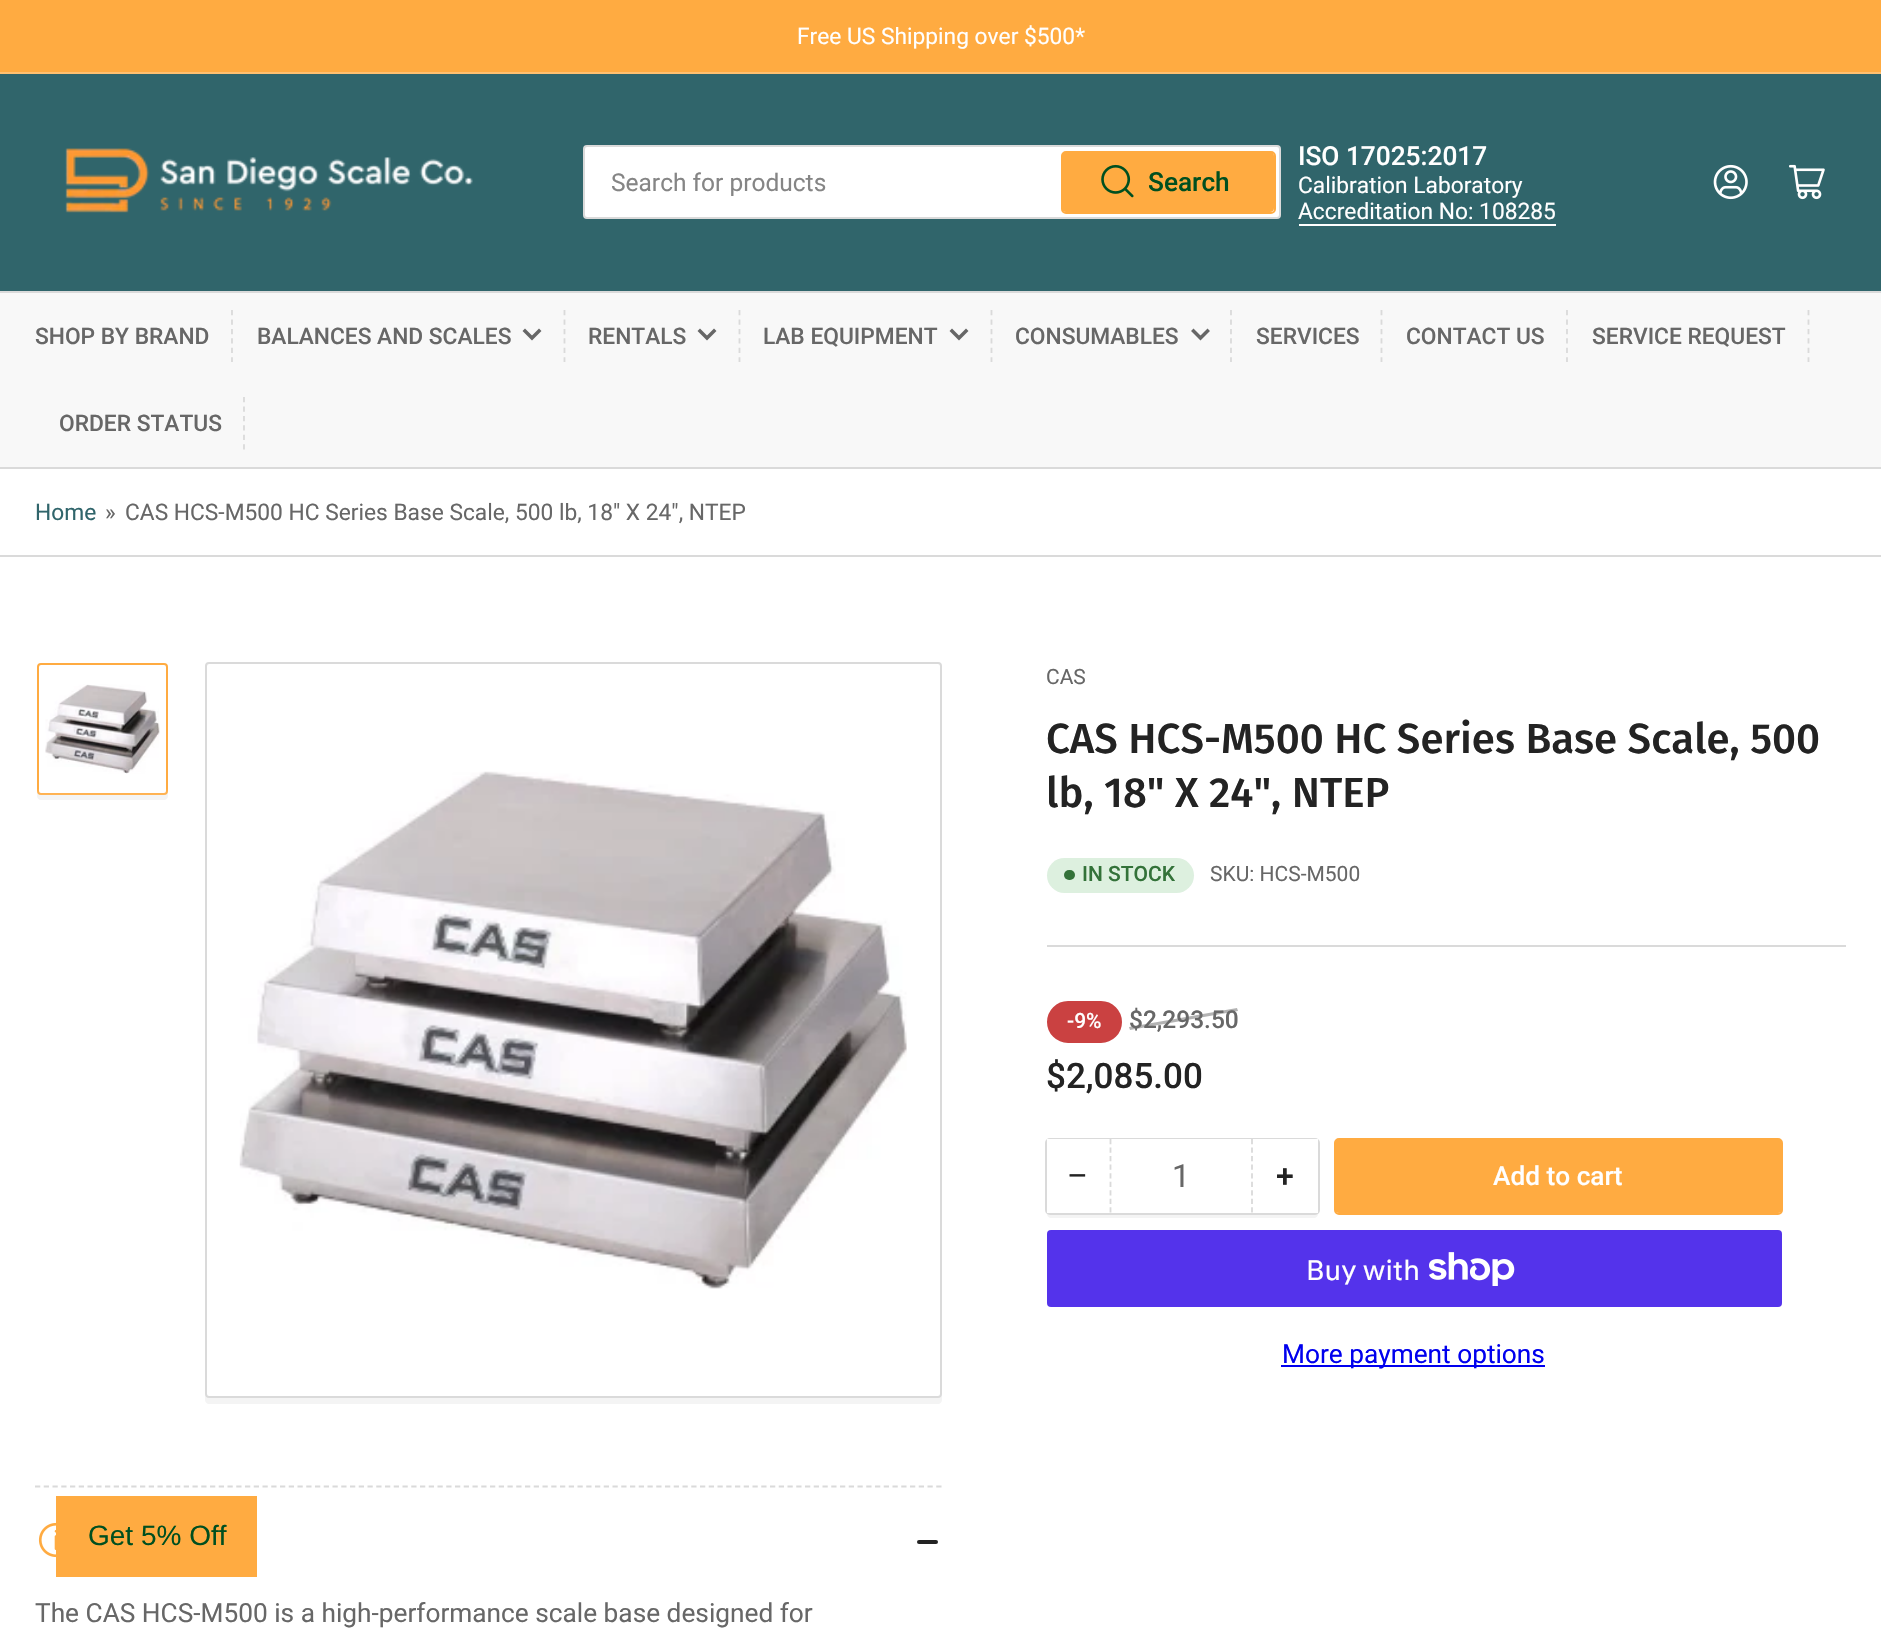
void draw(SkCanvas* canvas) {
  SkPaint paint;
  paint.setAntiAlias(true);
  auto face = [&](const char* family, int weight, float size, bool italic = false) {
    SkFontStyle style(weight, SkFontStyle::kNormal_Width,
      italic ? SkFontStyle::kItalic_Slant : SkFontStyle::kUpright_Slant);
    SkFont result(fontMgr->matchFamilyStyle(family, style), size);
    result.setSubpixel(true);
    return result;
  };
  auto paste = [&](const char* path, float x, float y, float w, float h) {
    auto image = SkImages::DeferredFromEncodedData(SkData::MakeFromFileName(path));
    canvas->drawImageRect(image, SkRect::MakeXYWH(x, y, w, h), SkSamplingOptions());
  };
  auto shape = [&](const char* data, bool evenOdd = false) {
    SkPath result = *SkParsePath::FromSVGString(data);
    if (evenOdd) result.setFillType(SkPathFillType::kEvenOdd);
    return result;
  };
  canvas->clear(0xffffffff);
  {
    const struct { float x, y, w, h; SkColor color; } items[] = {
      {0, 0, 1881, 72, 0xffffab41},
      {0, 72, 1881, 2, 0xffffc071},
      {0, 74, 1881, 217, 0xff30656b},
    };
    for (auto [x, y, w, h, color] : items) {
      paint.setColor(color);
      canvas->drawRect(SkRect::MakeXYWH(x, y, w, h), paint);
    }
  }
  paste("img/1.png", 65, 148, 408, 65);
  paint.setColor(0xffffffff);
  canvas->drawRoundRect(SkRect::MakeXYWH(584, 146, 696, 72), 3, 3, paint);
  paint.setStroke(true);
  paint.setStrokeWidth(2);
  paint.setColor(0xffdadada);
  canvas->drawRoundRect(SkRect::MakeXYWH(584, 146, 696, 72), 3, 3, paint);
  paint.setColor(0xffffab41);
  canvas->drawRoundRect(SkRect::MakeXYWH(1062, 152, 213, 61), 4, 4, paint);
  paint.setStroke(false);
  canvas->drawRoundRect(SkRect::MakeXYWH(1062, 152, 212, 60), 4, 4, paint);
  paste("img/2.png", 1101, 164, 33, 34);
  paint.setColor(0xffffffff);
  canvas->drawRect(SkRect::MakeXYWH(1299, 224, 257, 2), paint);
  paste("img/3.png", 1713, 164, 35, 36);
  paste("img/4.png", 1789, 164, 36, 36);
  {
    const struct { float x, y, w, h; SkColor color; } items[] = {
      {0, 293, 1881, 174, 0xfff8f8f8},
      {0, 291, 1881, 2, 0xffdadada},
      {0, 467, 1881, 2, 0xffdadada},
    };
    for (auto [x, y, w, h, color] : items) {
      paint.setColor(color);
      canvas->drawRect(SkRect::MakeXYWH(x, y, w, h), paint);
    }
  }
  paint.setStroke(true);
  paint.setStrokeWidth(1.8f);
  paint.setPathEffect(SkDashPathEffect::Make({{5.25f, 4.2f}}, 0));
  canvas->drawPath(shape("M232 310V362"), paint);
  paint.setPathEffect(nullptr);
  paint.setStrokeWidth(3.5f);
  paint.setStrokeCap(SkPaint::kSquare_Cap);
  paint.setColor(0xff676767);
  canvas->drawPath(shape("M539 331L532 338L525 331"), paint);
  paint.setStrokeWidth(1.8f);
  paint.setStrokeCap(SkPaint::kButt_Cap);
  paint.setColor(0xffdadada);
  paint.setPathEffect(SkDashPathEffect::Make({{5.25f, 4.2f}}, 0));
  canvas->drawPath(shape("M564.5 310V362"), paint);
  paint.setPathEffect(nullptr);
  paint.setStrokeWidth(3.5f);
  paint.setStrokeCap(SkPaint::kSquare_Cap);
  paint.setColor(0xff676767);
  canvas->drawPath(shape("M714 331L707 338L700 331"), paint);
  paint.setStrokeWidth(1.8f);
  paint.setStrokeCap(SkPaint::kButt_Cap);
  paint.setColor(0xffdadada);
  paint.setPathEffect(SkDashPathEffect::Make({{5.25f, 4.2f}}, 0));
  canvas->drawPath(shape("M739.5 310V362"), paint);
  paint.setPathEffect(nullptr);
  paint.setStrokeWidth(3.5f);
  paint.setStrokeCap(SkPaint::kSquare_Cap);
  paint.setColor(0xff676767);
  canvas->drawPath(shape("M966 331L959 338L952 331"), paint);
  paint.setStrokeWidth(1.8f);
  paint.setStrokeCap(SkPaint::kButt_Cap);
  paint.setColor(0xffdadada);
  paint.setPathEffect(SkDashPathEffect::Make({{5.25f, 4.2f}}, 0));
  canvas->drawPath(shape("M991.5 310V362"), paint);
  paint.setPathEffect(nullptr);
  paint.setStrokeWidth(3.5f);
  paint.setStrokeCap(SkPaint::kSquare_Cap);
  paint.setColor(0xff676767);
  canvas->drawPath(shape("M1207.5 331L1200.5 338L1193.5 331"), paint);
  paint.setStrokeWidth(1.8f);
  paint.setStrokeCap(SkPaint::kButt_Cap);
  paint.setColor(0xffdadada);
  paint.setPathEffect(SkDashPathEffect::Make({{5.25f, 4.2f}}, 0));
  canvas->drawPath(shape("M1231 310V362"), paint);
  paint.setPathEffect(nullptr);
  paint.setPathEffect(SkDashPathEffect::Make({{5.25f, 4.2f}}, 0));
  canvas->drawPath(shape("M1381.5 310V362"), paint);
  paint.setPathEffect(nullptr);
  paint.setPathEffect(SkDashPathEffect::Make({{5.25f, 4.2f}}, 0));
  canvas->drawPath(shape("M1567 310V362"), paint);
  paint.setPathEffect(nullptr);
  paint.setPathEffect(SkDashPathEffect::Make({{5.25f, 4.2f}}, 0));
  canvas->drawPath(shape("M1808.5 310V362"), paint);
  paint.setPathEffect(nullptr);
  paint.setPathEffect(SkDashPathEffect::Make({{5.25f, 4.2f}}, 0));
  canvas->drawPath(shape("M244 397V450"), paint);
  paint.setPathEffect(nullptr);
  paint.setStroke(false);
  canvas->drawRect(SkRect::MakeXYWH(0, 555, 1881, 2), paint);
  paint.setColor(0xfff4f4f4);
  canvas->drawPath(shape("M37 792V796C37 798 39 800 41 800H164C166 800 168 798 168 796V791C168 793 166 794 164 794H40C39 794 38 794 37 792Z"), paint);
  paint.setColor(0xffffffff);
  canvas->drawRoundRect(SkRect::MakeXYWH(38, 664, 129, 130), 3, 3, paint);
  paint.setStroke(true);
  paint.setStrokeWidth(2);
  paint.setColor(0xffffab41);
  canvas->drawRoundRect(SkRect::MakeXYWH(38, 664, 129, 130), 3, 3, paint);
  paste("img/5.png", 45, 684, 115, 90);
  paint.setStroke(false);
  {
    const SkColor colors[] = {0xffffffff, 0x00ffffff};
    const float stops[] = {0, 1};
    const SkPoint ends[] = {{102, 849}, {102, 788}};
    paint.setShader(SkGradientShader::MakeLinear(ends, colors, stops, 2, SkTileMode::kClamp));
    paint.setAlpha(255);
  }
  canvas->drawRect(SkRect::MakeXYWH(37, 789, 131, 6), paint);
  paint.setShader(nullptr);
  paint.setColor(0xfff4f4f4);
  canvas->drawPath(shape("M205 1396V1400C205 1402 207 1404 209 1404H938C940 1404 942 1402 942 1400V671V669V1395C942 1397 940 1398 938 1398H208C207 1398 206 1397 205 1396Z"), paint);
  paint.setStroke(true);
  paint.setColor(0xffdadada);
  canvas->drawRoundRect(SkRect::MakeXYWH(206, 663, 735, 734), 3, 3, paint);
  paste("img/6.png", 239, 771, 668, 518);
  paint.setStroke(false);
  canvas->drawRect(SkRect::MakeXYWH(1047, 945, 799, 2), paint);
  paint.setColor(0xffddf0df);
  canvas->drawRoundRect(SkRect::MakeXYWH(1047, 858, 147, 35), 17.5f, 17.5f, paint);
  paint.setColor(0xff337239);
  canvas->drawRoundRect(SkRect::MakeXYWH(1064, 870, 11, 10), 5, 5, paint);
  paint.setColor(0xffca4141);
  canvas->drawRoundRect(SkRect::MakeXYWH(1049, 1003, 71, 38), 19, 19, paint);
  paint.setStroke(true);
  paint.setStrokeWidth(4);
  canvas->drawRoundRect(SkRect::MakeXYWH(1049, 1003, 71, 38), 19, 19, paint);
  paint.setStroke(false);
  paint.setColor(0xfff4f4f4);
  canvas->drawPath(shape("M1047 1211V1214C1047 1216 1049 1218 1051 1218H1314C1316 1218 1318 1216 1318 1214V1148V1209C1318 1211 1316 1213 1314 1213H1050C1049 1213 1048 1212 1047 1211Z"), paint);
  paint.setStroke(true);
  paint.setStrokeWidth(2);
  paint.setColor(0xffdadada);
  canvas->drawRoundRect(SkRect::MakeXYWH(1046, 1139, 273, 75), 4, 4, paint);
  paint.setStroke(false);
  paint.setColor(0xffffffff);
  canvas->drawRect(SkRect::MakeXYWH(1110, 1139, 143, 1), paint);
  canvas->drawRect(SkRect::MakeXYWH(1047, 1139, 63, 74), paint);
  paint.setStroke(true);
  paint.setStrokeWidth(1.8f);
  paint.setColor(0xffdadada);
  paint.setPathEffect(SkDashPathEffect::Make({{5.25f, 3.29f}}, 0));
  canvas->drawPath(shape("M1252 1139V1213"), paint);
  paint.setPathEffect(nullptr);
  paint.setPathEffect(SkDashPathEffect::Make({{5.25f, 3.29f}}, 0));
  canvas->drawPath(shape("M1110.5 1139V1213"), paint);
  paint.setPathEffect(nullptr);
  paint.setStroke(false);
  paint.setColor(0xffffffff);
  canvas->drawRect(SkRect::MakeXYWH(1253, 1139, 65, 74), paint);
  paint.setStroke(true);
  paint.setStrokeWidth(2);
  paint.setColor(0xffffab41);
  canvas->drawRoundRect(SkRect::MakeXYWH(1335, 1139, 447, 75), 4, 4, paint);
  paint.setStroke(false);
  canvas->drawRoundRect(SkRect::MakeXYWH(1335, 1139, 447, 74), 4, 4, paint);
  paint.setColor(0xff5433eb);
  canvas->drawRoundRect(SkRect::MakeXYWH(1047, 1230, 735, 77), 4, 4, paint);
  paste("img/7.png", 1429, 1252, 86, 34);
  paint.setColor(0xff0000ee);
  canvas->drawRect(SkRect::MakeXYWH(1281, 1365, 264, 2), paint);
  paint.setStroke(true);
  paint.setStrokeWidth(1.8f);
  paint.setColor(0xffdadada);
  paint.setPathEffect(SkDashPathEffect::Make({{5.25f, 3.5f}}, 0));
  canvas->drawPath(shape("M35 1486.5H941.5"), paint);
  paint.setPathEffect(nullptr);
  paste("img/8.png", 38, 1522, 18, 36);
  paint.setStroke(false);
  paint.setColor(0xff232323);
  canvas->drawRoundRect(SkRect::MakeXYWH(917, 1540, 14, 4), 2, 2, paint);
  canvas->drawRoundRect(SkRect::MakeXYWH(926, 1540, 12, 4), 2, 2, paint);
  paint.setColor(0xffffab41);
  canvas->drawRect(SkRect::MakeXYWH(56, 1496, 201, 81), paint);
  auto f0 = face("Roboto", 400, 22.75f);
  paint.setColor(0xffffffff);
  canvas->drawString("Free US Shipping over $500*", 797, 44, f0, paint);
  auto f1 = face("Roboto", 400, 24.5f);
  paint.setColor(0xff858585);
  canvas->drawString("Search for products", 611, 191, f1, paint);
  auto f2 = face("Roboto", 500, 26.25f);
  paint.setColor(0xff004f1f);
  canvas->drawString("Search", 1148, 191, f2, paint);
  paint.setColor(0xffffffff);
  canvas->drawString("ISO 17025:2017", 1298, 165, f2, paint);
  canvas->drawString("Calibration Laboratory", 1298, 193, f0, paint);
  canvas->drawString("Accreditation No: 108285", 1298, 219, f0, paint);
  auto f3 = face("Roboto", 500, 22.75f);
  paint.setColor(0xff676767);
  {
    const struct { const char* s; float x, y; } items[] = {
      {"SHOP BY BRAND", 35, 344},
      {"BALANCES AND SCALES", 257, 344},
      {"RENTALS", 588, 344},
      {"LAB EQUIPMENT", 763, 344},
      {"CONSUMABLES", 1015, 344},
      {"SERVICES", 1256, 344},
      {"CONTACT US", 1406, 344},
      {"SERVICE REQUEST", 1592, 344},
      {"ORDER STATUS", 59, 431},
    };
    for (auto [s, x, y] : items) {
      canvas->drawString(s, x, y, f3, paint);
    }
  }
  paint.setColor(0xff30656b);
  canvas->drawString("Home", 35, 520, f0, paint);
  paint.setColor(0xff676767);
  canvas->drawString("»", 105, 520, f0, paint);
  canvas->drawString("CAS HCS-M500 HC Series Base Scale, 500 lb, 18\" X 24\", NTEP", 125, 520, f0, paint);
  auto f4 = face("Roboto", 400, 21);
  canvas->drawString("CAS", 1046, 684, f4, paint);
  auto f5 = face("Fira Sans", 500, 42);
  paint.setColor(0xff232323);
  canvas->drawString("CAS HCS-M500 HC Series Base Scale, 500", 1046, 753, f5, paint);
  canvas->drawString("lb, 18\" X 24\", NTEP", 1046, 807, f5, paint);
  auto f6 = face("Roboto", 500, 21);
  paint.setColor(0xff337239);
  canvas->drawString("IN STOCK", 1082, 881, f6, paint);
  paint.setColor(0xff676767);
  canvas->drawString("SKU: HCS-M500", 1210, 881, f4, paint);
  paint.setColor(0xffffffff);
  canvas->drawString("-9%", 1067, 1028, f6, paint);
  auto f7 = face("Roboto", 500, 24.5f);
  paint.setColor(0xff676767);
  canvas->drawString("$2,293.50", 1129, 1028, f7, paint);
  paint.setColor(0x80676767);
  canvas->drawPath(shape("M1129 1027L1237 1008L1238 1011L1130 1030Z"), paint);
  auto f8 = face("Roboto", 500, 35);
  paint.setColor(0xff232323);
  canvas->drawString("$2,085.00", 1046, 1088, f8, paint);
  auto f9 = face("Liberation Sans", 400, 32);
  canvas->drawString("−", 1068, 1186, f9, paint);
  auto f10 = face("Roboto", 400, 32);
  paint.setColor(0xff676767);
  canvas->drawString("1", 1172, 1187, f10, paint);
  auto f11 = face("Roboto", 500, 32);
  paint.setColor(0xff232323);
  canvas->drawString("+", 1276, 1187, f11, paint);
  paint.setColor(0xffffffff);
  canvas->drawString("Add to cart", 1493, 1185, f2, paint);
  auto f12 = face("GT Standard", 400, 28);
  canvas->drawString("Buy with", 1306, 1280, f12, paint);
  auto f13 = face("Roboto", 400, 26.25f);
  paint.setColor(0xff0000ee);
  canvas->drawString("More payment options", 1282, 1363, f13, paint);
  paint.setColor(0xff676767);
  canvas->drawString("The CAS HCS-M500 is a high-performance scale base designed for", 35, 1622, f13, paint);
  auto f14 = face("Liberation Sans", 400, 28);
  paint.setColor(0xff004f1f);
  canvas->drawString("Get 5% Off", 88, 1545, f14, paint);
}
